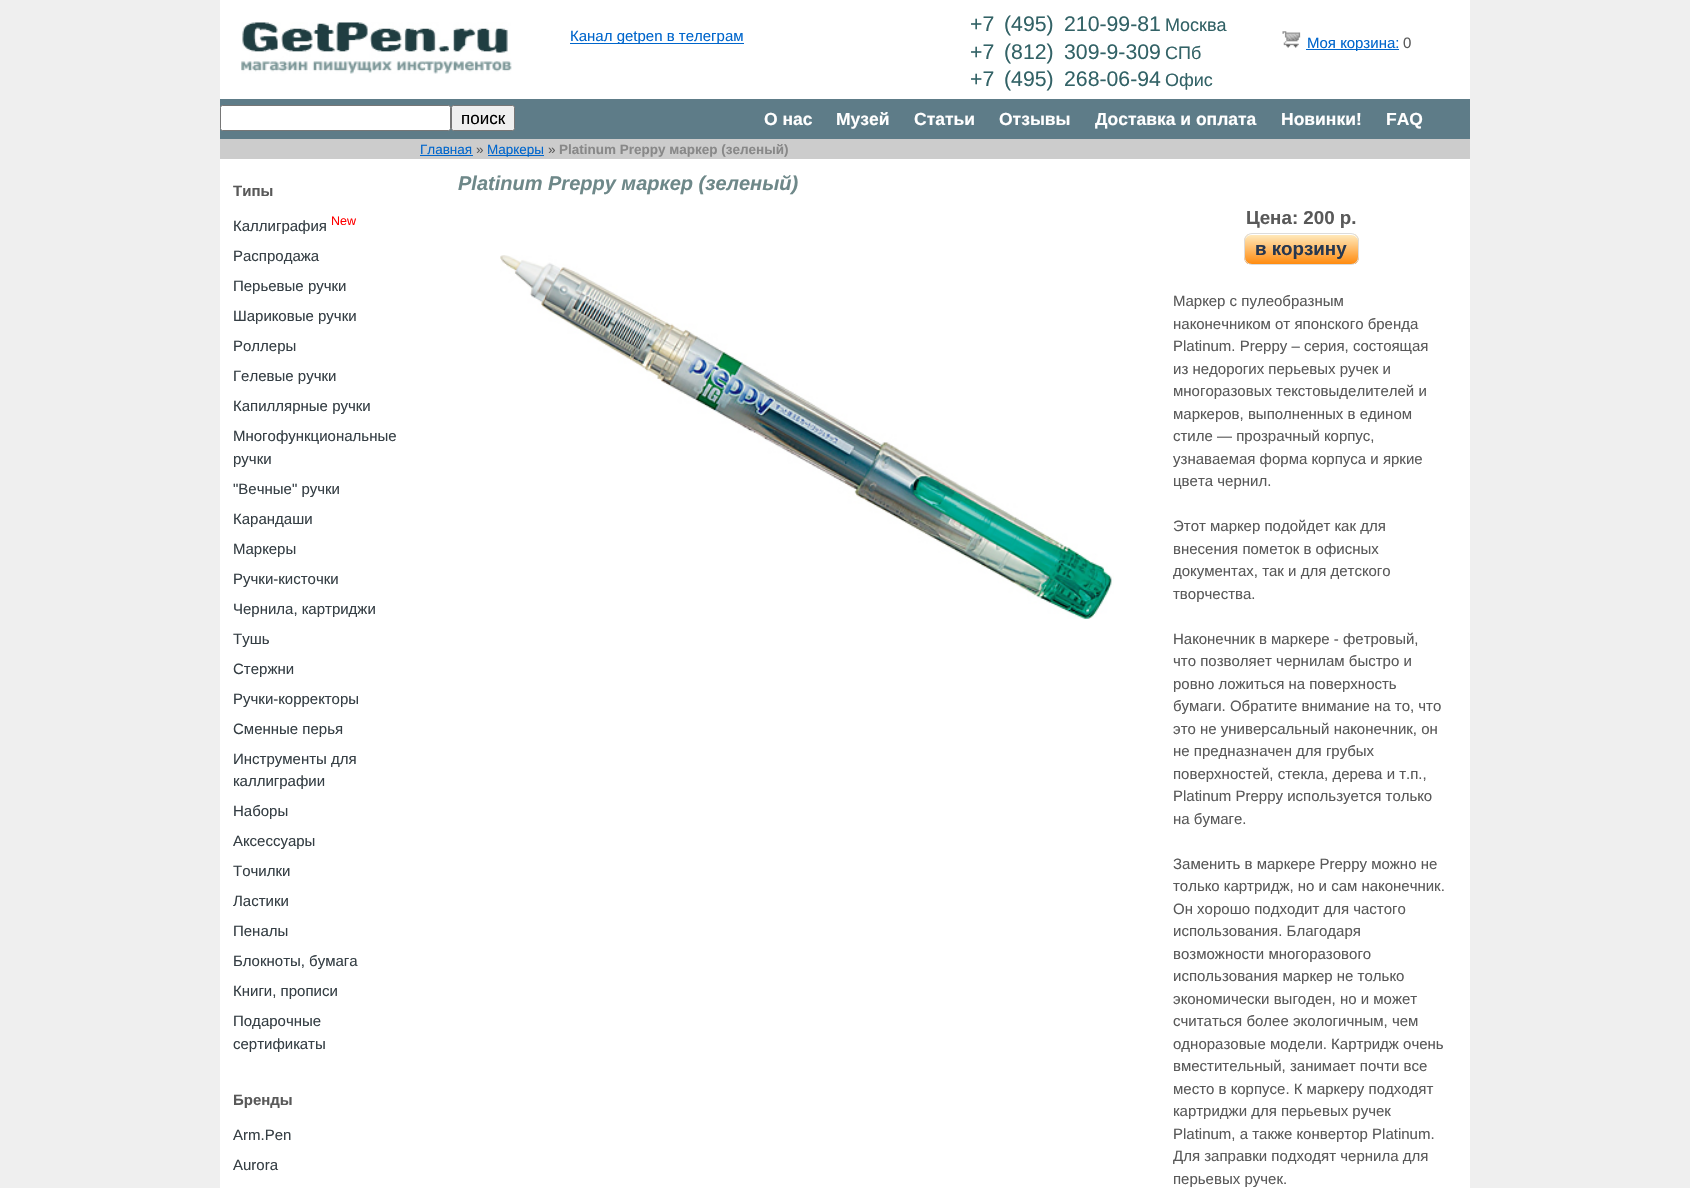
void draw(SkCanvas* canvas) {
  SkPaint paint;
  paint.setAntiAlias(true);
  auto face = [&](const char* family, int weight, float size, bool italic = false) {
    SkFontStyle style(weight, SkFontStyle::kNormal_Width,
      italic ? SkFontStyle::kItalic_Slant : SkFontStyle::kUpright_Slant);
    SkFont result(fontMgr->matchFamilyStyle(family, style), size);
    result.setSubpixel(true);
    return result;
  };
  auto paste = [&](const char* path, float x, float y, float w, float h) {
    auto image = SkImages::DeferredFromEncodedData(SkData::MakeFromFileName(path));
    canvas->drawImageRect(image, SkRect::MakeXYWH(x, y, w, h), SkSamplingOptions());
  };
  auto shape = [&](const char* data, bool evenOdd = false) {
    SkPath result = *SkParsePath::FromSVGString(data);
    if (evenOdd) result.setFillType(SkPathFillType::kEvenOdd);
    return result;
  };
  canvas->clear(0xffefefef);
  paint.setColor(0xffffffff);
  canvas->drawRect(SkRect::MakeXYWH(220, 0, 1250, 1188), paint);
  paste("img/1.png", 241, 22, 271, 52);
  paint.setColor(0xff0066cc);
  canvas->drawRect(SkRect::MakeXYWH(570, 43, 174, 1), paint);
  paste("img/2.png", 1282, 31, 19, 17);
  canvas->drawRect(SkRect::MakeXYWH(1306, 49, 93, 1), paint);
  paint.setColor(0xff5e7c88);
  canvas->drawRect(SkRect::MakeXYWH(220, 99, 1250, 40), paint);
  paint.setColor(0xffffffff);
  canvas->drawRoundRect(SkRect::MakeXYWH(220.5f, 105.5f, 230, 25), 2, 2, paint);
  paint.setStroke(true);
  paint.setStrokeWidth(1);
  paint.setColor(0xff767676);
  canvas->drawRoundRect(SkRect::MakeXYWH(220.5f, 105.5f, 230, 25), 2, 2, paint);
  paint.setStroke(false);
  paint.setColor(0xffefefef);
  canvas->drawRoundRect(SkRect::MakeXYWH(451.5f, 105.5f, 63, 25), 2, 2, paint);
  paint.setStroke(true);
  paint.setColor(0xff767676);
  canvas->drawRoundRect(SkRect::MakeXYWH(451.5f, 105.5f, 63, 25), 2, 2, paint);
  paint.setStroke(false);
  {
    const struct { float x, y, w, h; SkColor color; } items[] = {
      {220, 139, 1250, 20, 0xffcccccc},
      {420, 155, 53, 1, 0xff0066cc},
      {488, 155, 56, 1, 0xff0066cc},
    };
    for (auto [x, y, w, h, color] : items) {
      paint.setColor(color);
      canvas->drawRect(SkRect::MakeXYWH(x, y, w, h), paint);
    }
  }
  canvas->save();
  canvas->clipPath(shape("M1252 233H1351C1355.5 233 1359 236.5 1359 241V257C1359 261.5 1355.5 265 1351 265H1252C1247.5 265 1244 261.5 1244 257V241C1244 236.5 1247.5 233 1252 233Z"), true);
  {
    const SkColor colors[] = {0xffffe7b8, 0xffff8b0f};
    const float stops[] = {0.05f, 1};
    const SkPoint ends[] = {{1245, 234}, {1245, 264}};
    paint.setShader(SkGradientShader::MakeLinear(ends, colors, stops, 2, SkTileMode::kClamp));
    paint.setAlpha(255);
  }
  canvas->drawRect(SkRect::MakeXYWH(1244, 234, 115, 30), paint);
  canvas->restore();
  paint.setShader(nullptr);
  paint.setColor(0xffffffff);
  canvas->drawPath(shape("M1251 235H1351C1355 235 1358 238 1358 241C1358 230 1341 234 1335 234H1268C1262 234 1245 230 1245 241C1245 238 1248 235 1251 235Z"), paint);
  paint.setStroke(true);
  paint.setColor(0xffdcdcdc);
  canvas->drawRoundRect(SkRect::MakeXYWH(1244.5f, 233.5f, 114, 31), 7.5f, 7.5f, paint);
  paste("img/3.png", 500, 255, 614, 364);
  auto f0 = face("Liberation Sans", 400, 15);
  paint.setStroke(false);
  paint.setColor(0xff0066cc);
  canvas->drawString("Канал getpen в телеграм", 570, 41, f0, paint);
  auto f1 = face("Liberation Sans", 400, 21.25f);
  paint.setColor(0xff326266);
  canvas->drawString("+7", 970, 31, f1, paint);
  canvas->drawString("(495)", 1004, 31, f1, paint);
  canvas->drawString("210-99-81", 1064, 31, f1, paint);
  auto f2 = face("Liberation Sans", 400, 18);
  canvas->drawString("Москва", 1165, 31, f2, paint);
  canvas->drawString("+7", 970, 59, f1, paint);
  canvas->drawString("(812)", 1004, 59, f1, paint);
  canvas->drawString("309-9-309", 1064, 59, f1, paint);
  canvas->drawString("СПб", 1165, 59, f2, paint);
  canvas->drawString("+7", 970, 86, f1, paint);
  canvas->drawString("(495)", 1004, 86, f1, paint);
  canvas->drawString("268-06-94", 1064, 86, f1, paint);
  canvas->drawString("Офис", 1165, 86, f2, paint);
  paint.setColor(0xff0066cc);
  canvas->drawString("Моя корзина:", 1307, 48, f0, paint);
  paint.setColor(0xff595959);
  canvas->drawString("0", 1403, 48, f0, paint);
  auto f3 = face("Liberation Sans", 400, 17);
  paint.setColor(0xff000000);
  canvas->drawString("поиск", 461, 124, f3, paint);
  auto f4 = face("Liberation Sans", 700, 17.5f);
  paint.setColor(0xffffffff);
  {
    const struct { const char* s; float x, y; } items[] = {
      {"О нас", 764, 125},
      {"Музей", 836, 125},
      {"Статьи", 914, 125},
      {"Отзывы", 999, 125},
      {"Доставка и оплата", 1095, 125},
      {"Новинки!", 1281, 125},
      {"FAQ", 1386, 125},
    };
    for (auto [s, x, y] : items) {
      canvas->drawString(s, x, y, f4, paint);
    }
  }
  auto f5 = face("Liberation Sans", 400, 13.5f);
  paint.setColor(0xff0066cc);
  canvas->drawString("Главная", 420, 154, f5, paint);
  paint.setColor(0xff595959);
  canvas->drawString("»", 476, 154, f5, paint);
  paint.setColor(0xff0066cc);
  canvas->drawString("Маркеры", 487, 154, f5, paint);
  paint.setColor(0xff595959);
  canvas->drawString("»", 548, 154, f5, paint);
  auto f6 = face("Liberation Sans", 700, 13.5f);
  paint.setColor(0xff888888);
  canvas->drawString("Platinum Preppy маркер (зеленый)", 559, 154, f6, paint);
  auto f7 = face("Liberation Sans", 700, 15);
  paint.setColor(0xff595959);
  canvas->drawString("Типы", 233, 196, f7, paint);
  paint.setColor(0xff363f45);
  canvas->drawString("Каллиграфия", 233, 231, f0, paint);
  auto f8 = face("Liberation Sans", 400, 12.5f);
  paint.setColor(0xffff0000);
  canvas->drawString("New", 331, 225, f8, paint);
  paint.setColor(0xff363f45);
  {
    const struct { const char* s; float x, y; } items[] = {
      {"Распродажа", 233, 261},
      {"Перьевые ручки", 233, 291},
      {"Шариковые ручки", 233, 321},
      {"Роллеры", 233, 351},
      {"Гелевые ручки", 233, 381},
      {"Капиллярные ручки", 233, 411},
      {"Многофункциональные", 233, 441},
      {"ручки", 233, 464},
      {"\"Вечные\" ручки", 233, 494},
      {"Карандаши", 233, 524},
      {"Маркеры", 233, 554},
      {"Ручки-кисточки", 233, 584},
      {"Чернила, картриджи", 233, 614},
      {"Тушь", 233, 644},
      {"Стержни", 233, 674},
      {"Ручки-корректоры", 233, 704},
      {"Сменные перья", 233, 734},
      {"Инструменты для", 233, 764},
      {"каллиграфии", 233, 786},
      {"Наборы", 233, 816},
      {"Аксессуары", 233, 846},
      {"Точилки", 233, 876},
      {"Ластики", 233, 906},
      {"Пеналы", 233, 936},
      {"Блокноты, бумага", 233, 966},
      {"Книги, прописи", 233, 996},
      {"Подарочные", 233, 1026},
      {"сертификаты", 233, 1049},
    };
    for (auto [s, x, y] : items) {
      canvas->drawString(s, x, y, f0, paint);
    }
  }
  paint.setColor(0xff595959);
  canvas->drawString("Бренды", 233, 1105, f7, paint);
  paint.setColor(0xff363f45);
  canvas->drawString("Arm.Pen", 233, 1140, f0, paint);
  canvas->drawString("Aurora", 233, 1170, f0, paint);
  auto f9 = face("Liberation Sans", 700, 20, true);
  paint.setColor(0xff6e8889);
  canvas->drawString("Platinum Preppy маркер (зеленый)", 458, 190, f9, paint);
  auto f10 = face("Liberation Sans", 700, 18.75f);
  paint.setColor(0xff595959);
  canvas->drawString("Цена: 200 р.", 1246, 224, f10, paint);
  paint.setColor(0xff27374f);
  canvas->drawString("в корзину", 1255, 255, f10, paint);
  paint.setColor(0xff595959);
  {
    const struct { const char* s; float x, y; } items[] = {
      {"Маркер с пулеобразным", 1173, 306},
      {"наконечником от японского бренда", 1173, 329},
      {"Platinum. Preppy – серия, состоящая", 1173, 351},
      {"из недорогих перьевых ручек и", 1173, 374},
      {"многоразовых текстовыделителей и", 1173, 396},
      {"маркеров, выполненных в едином", 1173, 419},
      {"стиле — прозрачный корпус,", 1173, 441},
      {"узнаваемая форма корпуса и яркие", 1173, 464},
      {"цвета чернил.", 1173, 486},
      {"Этот маркер подойдет как для", 1173, 531},
      {"внесения пометок в офисных", 1173, 554},
      {"документах, так и для детского", 1173, 576},
      {"творчества.", 1173, 599},
      {"Наконечник в маркере - фетровый,", 1173, 644},
      {"что позволяет чернилам быстро и", 1173, 666},
      {"ровно ложиться на поверхность", 1173, 689},
      {"бумаги. Обратите внимание на то, что", 1173, 711},
      {"это не универсальный наконечник, он", 1173, 734},
      {"не предназначен для грубых", 1173, 756},
      {"поверхностей, стекла, дерева и т.п.,", 1173, 779},
      {"Platinum Preppy используется только", 1173, 801},
      {"на бумаге.", 1173, 824},
      {"Заменить в маркере Preppy можно не", 1173, 869},
      {"только картридж, но и сам наконечник.", 1173, 891},
      {"Он хорошо подходит для частого", 1173, 914},
      {"использования. Благодаря", 1173, 936},
      {"возможности многоразового", 1173, 959},
      {"использования маркер не только", 1173, 981},
      {"экономически выгоден, но и может", 1173, 1004},
      {"считаться более экологичным, чем", 1173, 1026},
      {"одноразовые модели. Картридж очень", 1173, 1049},
      {"вместительный, занимает почти все", 1173, 1071},
      {"место в корпусе. К маркеру подходят", 1173, 1094},
      {"картриджи для перьевых ручек", 1173, 1116},
      {"Platinum, а также конвертор Platinum.", 1173, 1139},
      {"Для заправки подходят чернила для", 1173, 1161},
      {"перьевых ручек.", 1173, 1184},
    };
    for (auto [s, x, y] : items) {
      canvas->drawString(s, x, y, f0, paint);
    }
  }
}
